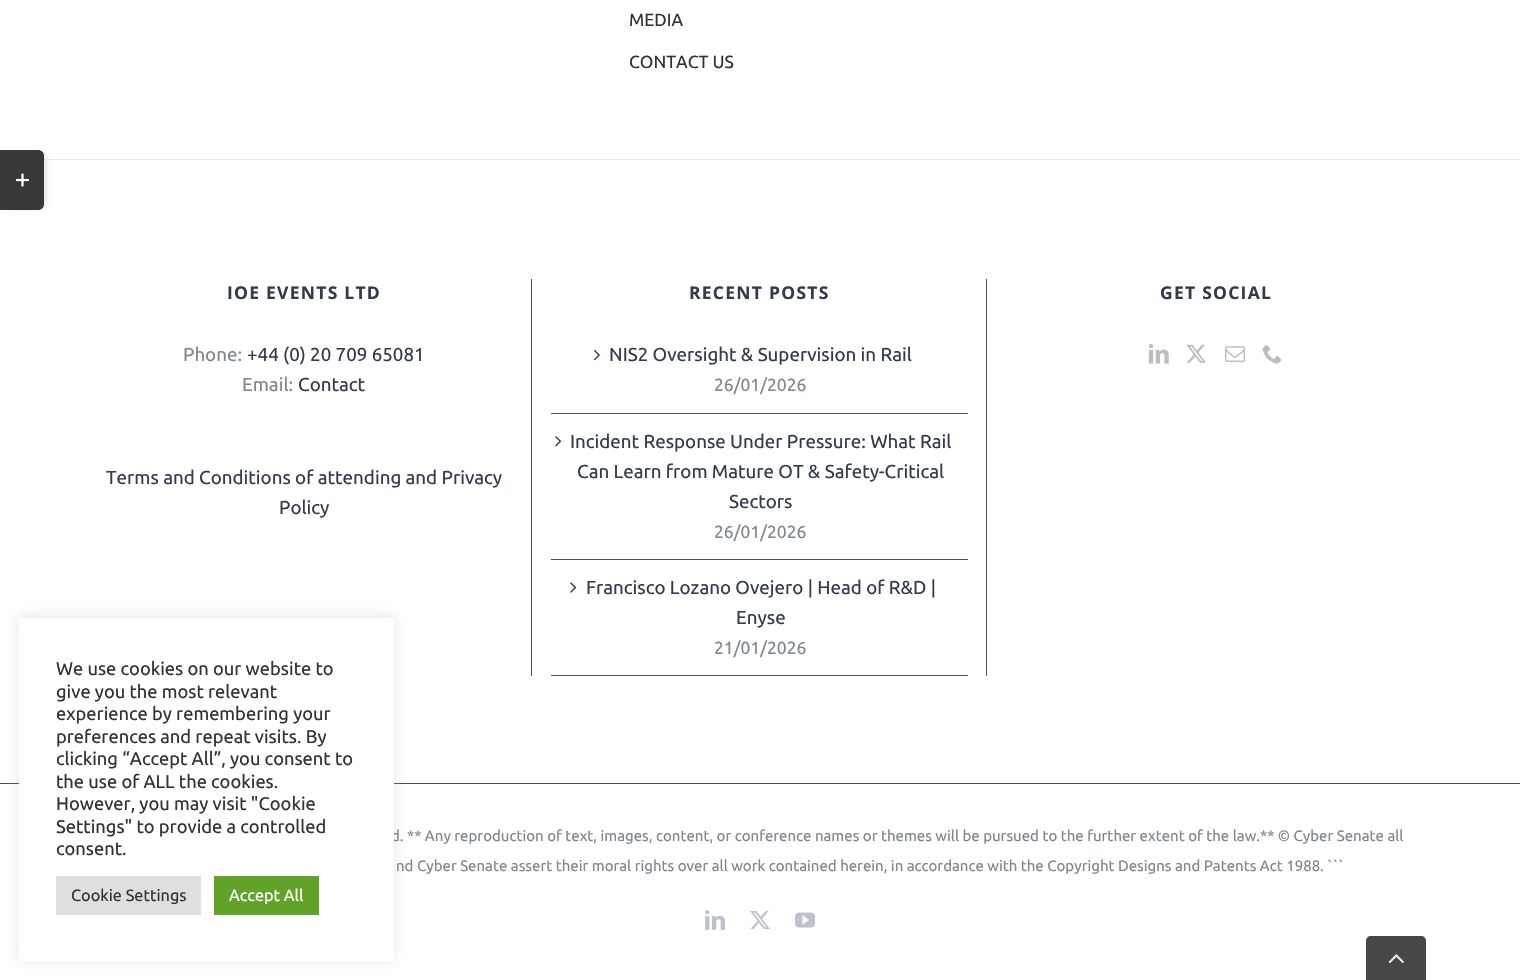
void draw(SkCanvas* canvas) {
  SkPaint paint;
  paint.setAntiAlias(true);
  auto face = [&](const char* family, int weight, float size, bool italic = false) {
    SkFontStyle style(weight, SkFontStyle::kNormal_Width,
      italic ? SkFontStyle::kItalic_Slant : SkFontStyle::kUpright_Slant);
    SkFont result(fontMgr->matchFamilyStyle(family, style), size);
    result.setSubpixel(true);
    return result;
  };
  auto writeSpaced = [&](const char* s, float x, float y, const SkFont& font, const SkPaint& ink, float letter, float word) {
    std::vector<SkGlyphID> glyphs(font.countText(s, strlen(s), SkTextEncoding::kUTF8));
    std::vector<float> xs(glyphs.size());
    font.textToGlyphs(s, strlen(s), SkTextEncoding::kUTF8, glyphs);
    font.getXPos(glyphs, xs, x);
    float extra = 0;
    for (size_t i = 0; i < glyphs.size(); i++) {
      xs[i] += extra;
      extra += letter + word * (glyphs[i] == font.unicharToGlyph(' '));
    }
    canvas->drawTextBlob(SkTextBlob::MakeFromPosHGlyphs(glyphs, xs, y, font), 0, 0, ink);
  };
  auto paste = [&](const char* path, float x, float y, float w, float h) {
    auto image = SkImages::DeferredFromEncodedData(SkData::MakeFromFileName(path));
    canvas->drawImageRect(image, SkRect::MakeXYWH(x, y, w, h), SkSamplingOptions());
  };
  auto shape = [&](const char* data, bool evenOdd = false) {
    SkPath result = *SkParsePath::FromSVGString(data);
    if (evenOdd) result.setFillType(SkPathFillType::kEvenOdd);
    return result;
  };
  canvas->clear(0xffffffff);
  paint.setColor(0xffe9eaee);
  canvas->drawRect(SkRect::MakeXYWH(44, 159, 1476, 1), paint);
  paint.setColor(0x24000000);
  paint.setMaskFilter(SkMaskFilter::MakeBlur(kNormal_SkBlurStyle, 3));
  canvas->drawRoundRect(SkRect::MakeXYWH(6, 153, 39, 55), 4, 4, paint);
  paint.setMaskFilter(nullptr);
  paint.setColor(0xff363839);
  canvas->drawPath(shape("M0 150H38C41.5 150 44 152.5 44 156V204C44 207.5 41.5 210 38 210H0Z"), paint);
  paste("img/1.png", 16, 173, 13, 14);
  {
    const struct { float x, y, w, h; SkColor color; } items[] = {
      {531, 279, 1, 397, 0xff505152},
      {986, 279, 1, 397, 0xff505152},
      {551, 413, 417, 1, 0xff505152},
    };
    for (auto [x, y, w, h, color] : items) {
      paint.setColor(color);
      canvas->drawRect(SkRect::MakeXYWH(x, y, w, h), paint);
    }
  }
  paste("img/2.png", 593, 349, 7, 12);
  canvas->drawRect(SkRect::MakeXYWH(551, 559, 417, 1), paint);
  paste("img/3.png", 555, 436, 7, 11);
  canvas->drawRect(SkRect::MakeXYWH(551, 675, 417, 1), paint);
  paste("img/4.png", 570, 582, 7, 11);
  paste("img/5.png", 1148, 344, 21, 20);
  paste("img/6.png", 1186, 344, 20, 19);
  paste("img/7.png", 1225, 346, 20, 16);
  paste("img/8.png", 1262, 345, 20, 19);
  paint.setColor(0xff4b4c4d);
  canvas->drawRect(SkRect::MakeXYWH(0, 783, 1520, 1), paint);
  paste("img/9.png", 705, 910, 20, 20);
  paste("img/10.png", 750, 910, 20, 20);
  paste("img/11.png", 795, 912, 20, 16);
  paint.setColor(0x4dacabab);
  paint.setMaskFilter(SkMaskFilter::MakeBlur(kNormal_SkBlurStyle, 6));
  canvas->drawRect(SkRect::MakeXYWH(19, 616, 375, 344), paint);
  paint.setMaskFilter(nullptr);
  paint.setColor(0xff474747);
  canvas->drawPath(shape("M1371 936H1421C1424 936 1426 938 1426 941V980H1366V941C1366 938 1368 936 1371 936Z"), paint);
  paste("img/12.png", 1388, 954, 16, 10);
  auto f0 = face("Ubuntu", 400, 17.5f);
  paint.setColor(0xff333333);
  canvas->drawString("MEDIA", 629, 26, f0, paint);
  canvas->drawString("CONTACT US", 629, 68, f0, paint);
  auto f1 = face("Open Sans", 700, 17.5f);
  paint.setColor(0xff333c4e);
  writeSpaced("IOE EVENTS LTD", 227, 299, f1, paint, 1.25f, 0);
  auto f2 = face("Ubuntu", 400, 18.75f);
  paint.setColor(0xff7e8890);
  canvas->drawString("Phone:", 183, 361, f2, paint);
  paint.setColor(0xff333c4e);
  canvas->drawString("+44 (0) 20 709 65081", 247, 361, f2, paint);
  paint.setColor(0xff7e8890);
  canvas->drawString("Email:", 242, 391, f2, paint);
  paint.setColor(0xff333c4e);
  {
    const struct { const char* s; float x, y; } items[] = {
      {"Contact", 298, 391},
      {"Terms and Conditions of attending and Privacy", 106, 484},
      {"Policy", 279, 514},
    };
    for (auto [s, x, y] : items) {
      canvas->drawString(s, x, y, f2, paint);
    }
  }
  writeSpaced("RECENT POSTS", 689, 299, f1, paint, 1.25f, 0);
  canvas->drawString("NIS2 Oversight & Supervision in Rail", 609, 361, f2, paint);
  paint.setColor(0xff7e8890);
  canvas->drawString("26/01/2026", 714, 391, f0, paint);
  paint.setColor(0xff333c4e);
  {
    const struct { const char* s; float x, y; } items[] = {
      {"Incident Response Under Pressure: What Rail", 570, 448},
      {"Can Learn from Mature OT & Safety-Critical", 577, 478},
      {"Sectors", 729, 508},
    };
    for (auto [s, x, y] : items) {
      canvas->drawString(s, x, y, f2, paint);
    }
  }
  paint.setColor(0xff7e8890);
  canvas->drawString("26/01/2026", 714, 538, f0, paint);
  paint.setColor(0xff333c4e);
  canvas->drawString("Francisco Lozano Ovejero | Head of R&D |", 586, 594, f2, paint);
  canvas->drawString("Enyse", 736, 624, f2, paint);
  paint.setColor(0xff7e8890);
  canvas->drawString("21/01/2026", 714, 654, f0, paint);
  paint.setColor(0xff333c4e);
  writeSpaced("GET SOCIAL", 1160, 299, f1, paint, 1.25f, 0);
  auto f3 = face("Ubuntu", 400, 15);
  paint.setColor(0xff7e8890);
  canvas->drawString("d. ** Any reproduction of text, images, content, or conference names or themes will be pursued to the further extent of the law.** © Cyber Senate all", 391, 841, f3, paint);
  canvas->drawString("nd Cyber Senate assert their moral rights over all work contained herein, in accordance with the Copyright Designs and Patents Act 1988. ```", 396, 871, f3, paint);
  paint.setColor(0xffffffff);
  canvas->drawRect(SkRect::MakeXYWH(19, 618, 375, 343), paint);
  auto f4 = face("Ubuntu", 400, 18.3f);
  paint.setColor(0xff333333);
  {
    const struct { const char* s; float x, y; } items[] = {
      {"We use cookies on our website to", 56, 675},
      {"give you the most relevant", 56, 698},
      {"experience by remembering your", 56, 720},
      {"preferences and repeat visits. By", 56, 743},
      {"clicking “Accept All”, you consent to", 56, 765},
      {"the use of ALL the cookies.", 56, 788},
      {"However, you may visit \"Cookie", 56, 810},
      {"Settings\" to provide a controlled", 56, 833},
      {"consent.", 56, 855},
    };
    for (auto [s, x, y] : items) {
      canvas->drawString(s, x, y, f4, paint);
    }
  }
  paint.setColor(0xffdedfe0);
  canvas->drawRect(SkRect::MakeXYWH(56, 876, 145, 39), paint);
  auto f5 = face("Ubuntu", 400, 16.25f);
  paint.setColor(0xff333333);
  canvas->drawString("Cookie Settings", 71, 901, f5, paint);
  paint.setColor(0xff61a229);
  canvas->drawRect(SkRect::MakeXYWH(214, 876, 105, 39), paint);
  paint.setColor(0xffffffff);
  canvas->drawString("Accept All", 229, 901, f5, paint);
}
